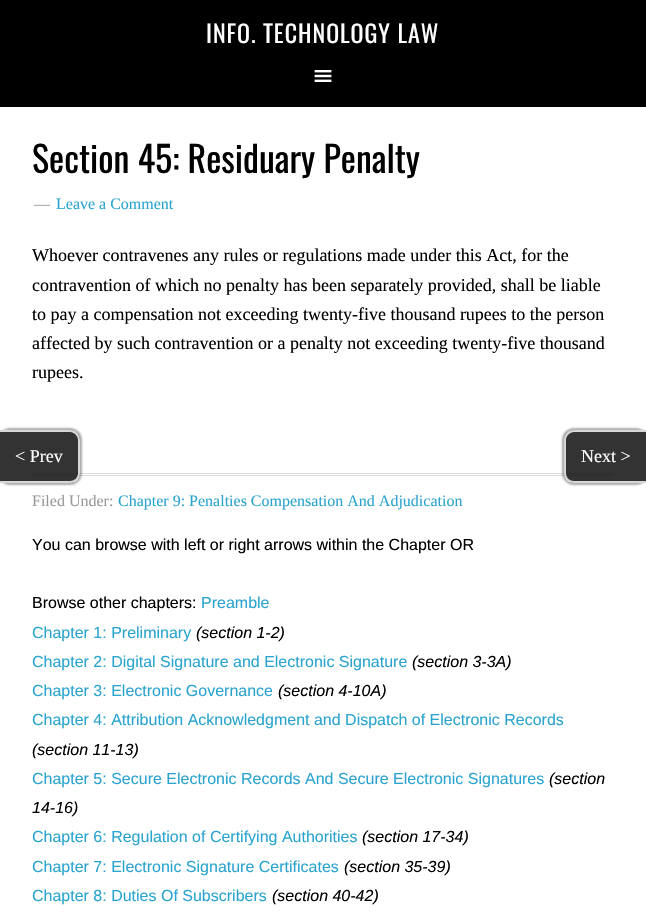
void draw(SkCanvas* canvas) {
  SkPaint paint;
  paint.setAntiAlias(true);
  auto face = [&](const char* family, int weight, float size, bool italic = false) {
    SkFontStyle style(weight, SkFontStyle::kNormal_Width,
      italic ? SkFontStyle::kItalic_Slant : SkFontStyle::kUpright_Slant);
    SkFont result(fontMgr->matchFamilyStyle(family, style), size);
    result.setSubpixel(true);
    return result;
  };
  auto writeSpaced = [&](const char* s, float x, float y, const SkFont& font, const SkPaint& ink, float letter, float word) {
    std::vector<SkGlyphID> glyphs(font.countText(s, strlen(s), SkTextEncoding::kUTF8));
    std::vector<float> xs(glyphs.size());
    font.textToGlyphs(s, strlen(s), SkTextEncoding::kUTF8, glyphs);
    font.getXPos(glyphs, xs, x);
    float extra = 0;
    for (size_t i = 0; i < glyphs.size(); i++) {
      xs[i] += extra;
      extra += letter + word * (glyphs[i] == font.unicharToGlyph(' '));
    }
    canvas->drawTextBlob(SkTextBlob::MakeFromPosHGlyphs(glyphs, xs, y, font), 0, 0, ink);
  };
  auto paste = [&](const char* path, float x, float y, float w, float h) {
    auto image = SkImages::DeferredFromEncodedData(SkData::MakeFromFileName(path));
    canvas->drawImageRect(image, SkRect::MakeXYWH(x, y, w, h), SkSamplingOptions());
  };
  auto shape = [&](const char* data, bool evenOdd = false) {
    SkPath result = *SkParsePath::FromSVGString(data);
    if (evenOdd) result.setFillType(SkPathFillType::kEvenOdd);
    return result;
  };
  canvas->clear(0xffffffff);
  paint.setColor(0xff000000);
  canvas->drawRect(SkRect::MakeXYWH(0, 0, 646, 107), paint);
  paste("img/1.png", 314, 70, 18, 12);
  paint.setColor(0xffdddddd);
  canvas->drawRect(SkRect::MakeXYWH(32, 473, 582, 1), paint);
  canvas->drawRect(SkRect::MakeXYWH(32, 475, 582, 1), paint);
  canvas->save();
  canvas->clipPath(shape("M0 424H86V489H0ZM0 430H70C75.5 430 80 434.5 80 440V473C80 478.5 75.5 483 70 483H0Z", true), true);
  paint.setColor(0x52000000);
  paint.setMaskFilter(SkMaskFilter::MakeBlur(kNormal_SkBlurStyle, 1));
  canvas->drawRoundRect(SkRect::MakeXYWH(-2, 428, 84, 57), 12, 12, paint);
  paint.setMaskFilter(nullptr);
  canvas->restore();
  paint.setColor(0xcc000000);
  canvas->drawPath(shape("M0 430H70C75.5 430 80 434.5 80 440V473C80 478.5 75.5 483 70 483H0Z"), paint);
  paint.setColor(0xccffffff);
  canvas->drawPath(shape("M0 430H70C76 430 80 435 80 440V473C80 479 76 483 70 483H0ZM0 432H70C74 432 78 436 78 440V473C78 478 74 481 70 481H0Z", true), paint);
  canvas->save();
  canvas->clipPath(shape("M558 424H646V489H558ZM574 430H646V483H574C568.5 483 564 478.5 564 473V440C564 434.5 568.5 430 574 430Z", true), true);
  paint.setColor(0x52000000);
  paint.setMaskFilter(SkMaskFilter::MakeBlur(kNormal_SkBlurStyle, 1));
  canvas->drawRoundRect(SkRect::MakeXYWH(562, 428, 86, 57), 12, 12, paint);
  paint.setMaskFilter(nullptr);
  canvas->restore();
  paint.setColor(0xcc000000);
  canvas->drawPath(shape("M574 430H646V483H574C568.5 483 564 478.5 564 473V440C564 434.5 568.5 430 574 430Z"), paint);
  paint.setColor(0xccffffff);
  canvas->drawPath(shape("M574 430H646V483H574C568 483 564 479 564 473V440C564 435 568 430 574 430ZM574 432H646V481H574C570 481 566 478 566 473V440C566 436 570 432 574 432Z", true), paint);
  auto f0 = face("Oswald", 400, 24);
  paint.setColor(0xffffffff);
  writeSpaced("INFO. TECHNOLOGY LAW", 206, 43, f0, paint, 1, 0);
  auto f1 = face("Oswald", 400, 36);
  paint.setColor(0xff000000);
  canvas->drawString("Section 45: Residuary Penalty", 32, 173, f1, paint);
  auto f2 = face("Liberation Serif", 400, 16);
  paint.setColor(0xff999999);
  canvas->drawString("—", 34, 209, f2, paint);
  paint.setColor(0xff2aa4cf);
  canvas->drawString("Leave a Comment", 56, 209, f2, paint);
  auto f3 = face("Liberation Serif", 400, 18);
  paint.setColor(0xff000000);
  {
    const struct { const char* s; float x, y; } items[] = {
      {"Whoever contravenes any rules or regulations made under this Act, for the", 32, 261},
      {"contravention of which no penalty has been separately provided, shall be liable", 32, 291},
      {"to pay a compensation not exceeding twenty-five thousand rupees to the person", 32, 320},
      {"affected by such contravention or a penalty not exceeding twenty-five thousand", 32, 349},
      {"rupees.", 32, 378},
    };
    for (auto [s, x, y] : items) {
      canvas->drawString(s, x, y, f3, paint);
    }
  }
  paint.setColor(0xff999999);
  canvas->drawString("Filed Under:", 32, 506, f2, paint);
  paint.setColor(0xff2aa4cf);
  canvas->drawString("Chapter 9: Penalties Compensation And Adjudication", 118, 506, f2, paint);
  auto f4 = face("Liberation Sans", 400, 16);
  paint.setColor(0xff000000);
  canvas->drawString("You can browse with left or right arrows within the Chapter OR", 32, 550, f4, paint);
  canvas->drawString("Browse other chapters:", 32, 608, f4, paint);
  paint.setColor(0xff2aa4cf);
  canvas->drawString("Preamble", 201, 608, f4, paint);
  canvas->drawString("Chapter 1: Preliminary", 32, 638, f4, paint);
  auto f5 = face("Liberation Sans", 400, 16, true);
  paint.setColor(0xff000000);
  canvas->drawString("(section 1-2)", 196, 638, f5, paint);
  paint.setColor(0xff2aa4cf);
  canvas->drawString("Chapter 2: Digital Signature and Electronic Signature", 32, 667, f4, paint);
  paint.setColor(0xff000000);
  canvas->drawString("(section 3-3A)", 412, 667, f5, paint);
  paint.setColor(0xff2aa4cf);
  canvas->drawString("Chapter 3: Electronic Governance", 32, 696, f4, paint);
  paint.setColor(0xff000000);
  canvas->drawString("(section 4-10A)", 278, 696, f5, paint);
  paint.setColor(0xff2aa4cf);
  canvas->drawString("Chapter 4: Attribution Acknowledgment and Dispatch of Electronic Records", 32, 725, f4, paint);
  paint.setColor(0xff000000);
  canvas->drawString("(section 11-13)", 32, 755, f5, paint);
  paint.setColor(0xff2aa4cf);
  canvas->drawString("Chapter 5: Secure Electronic Records And Secure Electronic Signatures", 32, 784, f4, paint);
  paint.setColor(0xff000000);
  canvas->drawString("(section", 549, 784, f5, paint);
  canvas->drawString("14-16)", 32, 813, f5, paint);
  paint.setColor(0xff2aa4cf);
  canvas->drawString("Chapter 6: Regulation of Certifying Authorities", 32, 842, f4, paint);
  paint.setColor(0xff000000);
  canvas->drawString("(section 17-34)", 362, 842, f5, paint);
  paint.setColor(0xff2aa4cf);
  canvas->drawString("Chapter 7: Electronic Signature Certificates", 32, 872, f4, paint);
  paint.setColor(0xff000000);
  canvas->drawString("(section 35-39)", 344, 872, f5, paint);
  paint.setColor(0xff2aa4cf);
  canvas->drawString("Chapter 8: Duties Of Subscribers", 32, 901, f4, paint);
  paint.setColor(0xff000000);
  canvas->drawString("(section 40-42)", 272, 901, f5, paint);
  paint.setColor(0xffffffff);
  canvas->drawString("< Prev", 15, 462, f3, paint);
  canvas->drawString("Next >", 581, 462, f3, paint);
}
